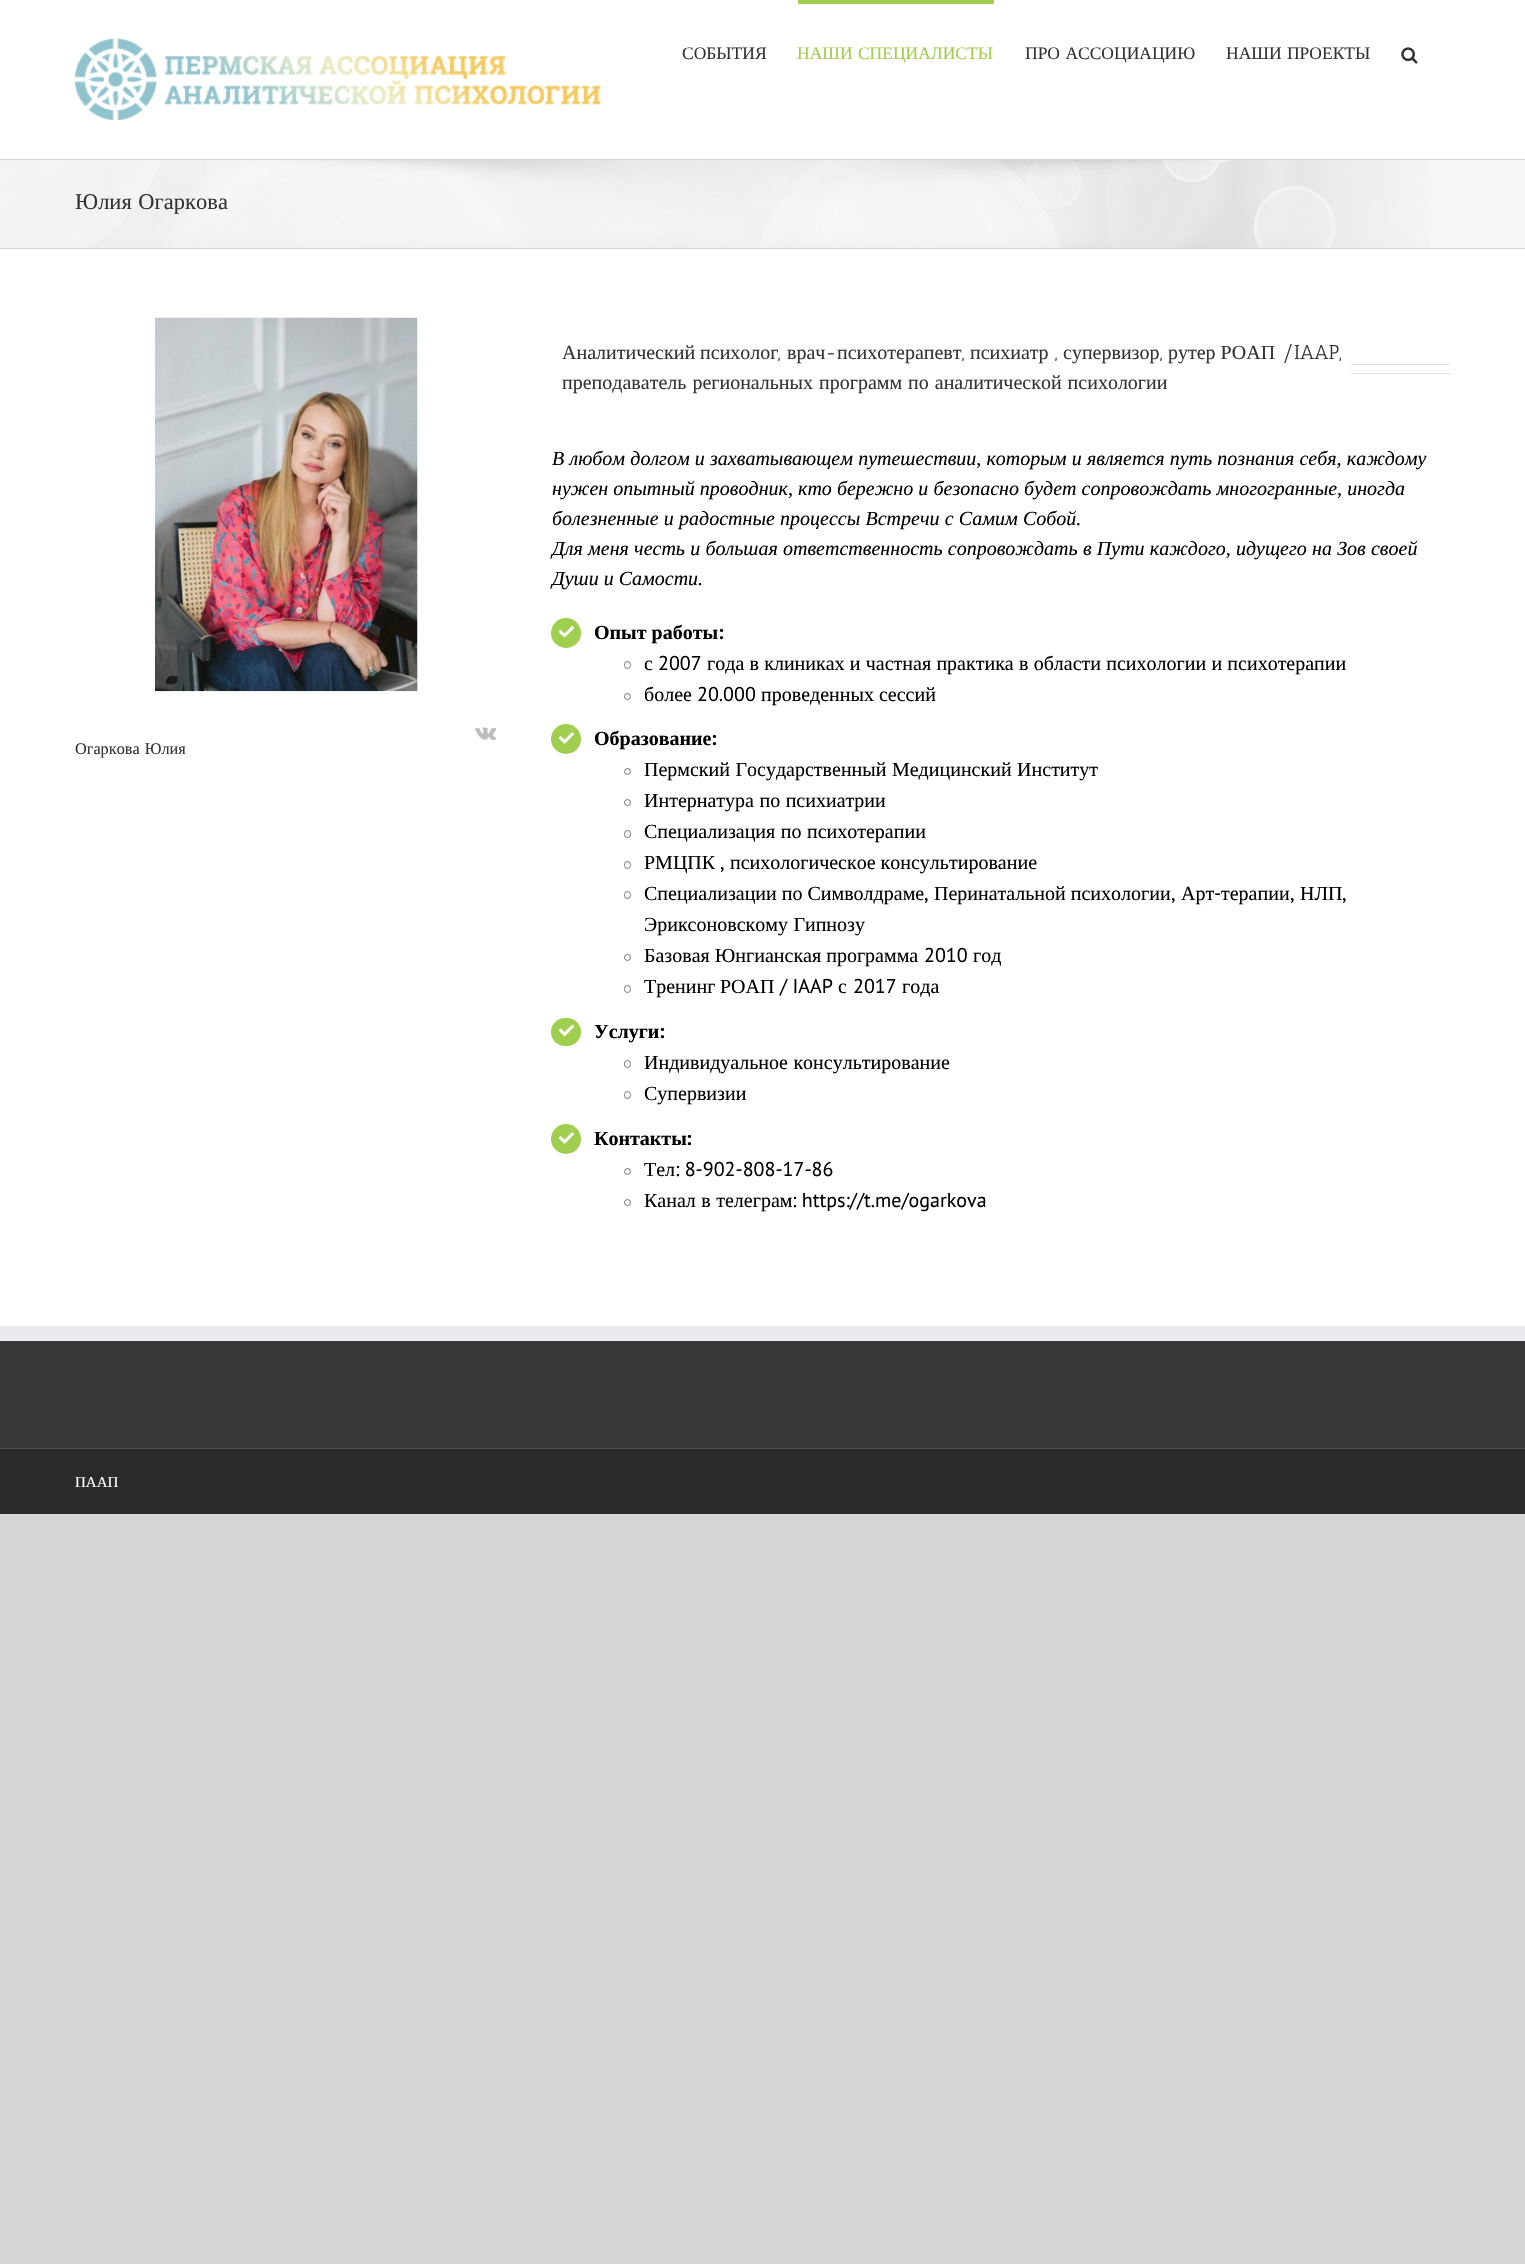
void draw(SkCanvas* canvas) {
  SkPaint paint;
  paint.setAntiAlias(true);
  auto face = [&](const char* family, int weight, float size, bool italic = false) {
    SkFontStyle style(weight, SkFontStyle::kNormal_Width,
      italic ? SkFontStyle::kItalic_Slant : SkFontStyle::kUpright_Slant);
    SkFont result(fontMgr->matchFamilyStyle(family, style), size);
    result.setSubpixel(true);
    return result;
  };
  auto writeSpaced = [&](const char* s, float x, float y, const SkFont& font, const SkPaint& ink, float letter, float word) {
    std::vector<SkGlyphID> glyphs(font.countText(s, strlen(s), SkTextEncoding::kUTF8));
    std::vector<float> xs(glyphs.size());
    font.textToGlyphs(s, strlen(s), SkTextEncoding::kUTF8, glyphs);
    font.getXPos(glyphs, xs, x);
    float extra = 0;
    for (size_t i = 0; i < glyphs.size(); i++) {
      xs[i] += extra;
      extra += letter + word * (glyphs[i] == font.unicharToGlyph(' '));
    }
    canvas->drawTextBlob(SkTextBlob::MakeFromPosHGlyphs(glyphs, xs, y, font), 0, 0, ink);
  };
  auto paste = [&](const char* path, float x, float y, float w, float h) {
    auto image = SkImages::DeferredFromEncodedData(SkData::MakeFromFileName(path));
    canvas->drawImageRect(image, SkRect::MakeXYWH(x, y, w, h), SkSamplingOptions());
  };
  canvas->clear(0xffd7d6d6);
  paint.setColor(0xffffffff);
  canvas->drawRect(SkRect::MakeXYWH(0, 249, 1525, 1077), paint);
  canvas->drawRect(SkRect::MakeXYWH(0, 0, 1525, 159), paint);
  paste("img/1.png", 75, 38, 527, 82);
  paint.setColor(0xffa0ce4e);
  canvas->drawRect(SkRect::MakeXYWH(798, 0, 196, 4), paint);
  paste("img/2.png", 1401, 47, 17, 17);
  paint.setColor(0xfff6f6f6);
  canvas->drawRect(SkRect::MakeXYWH(0, 160, 1525, 88), paint);
  paste("img/3.png", 0, 160, 1429, 88);
  paint.setColor(0xffd2d3d4);
  canvas->drawRect(SkRect::MakeXYWH(0, 159, 1525, 1), paint);
  canvas->drawRect(SkRect::MakeXYWH(0, 248, 1525, 1), paint);
  paste("img/4.png", 155, 317, 263, 375);
  paste("img/5.png", 475, 727, 21, 13);
  paint.setColor(0xffe0dede);
  canvas->drawRect(SkRect::MakeXYWH(1351, 364, 99, 1), paint);
  canvas->drawRect(SkRect::MakeXYWH(1351, 373, 99, 1), paint);
  paint.setColor(0xffa0ce4e);
  canvas->drawCircle(566, 633, 15, paint);
  paste("img/6.png", 558, 626, 17, 12);
  paint.setStroke(true);
  paint.setStrokeWidth(1);
  paint.setColor(0xff747474);
  canvas->drawRoundRect(SkRect::MakeXYWH(624.5f, 661.5f, 6, 7), 3, 3, paint);
  canvas->drawCircle(627.5f, 696.5f, 3, paint);
  paint.setStroke(false);
  paint.setColor(0xffa0ce4e);
  canvas->drawCircle(566, 739, 15, paint);
  paste("img/7.png", 558, 732, 17, 12);
  paint.setStroke(true);
  paint.setColor(0xff747474);
  canvas->drawCircle(627.5f, 771.5f, 3, paint);
  canvas->drawCircle(627.5f, 802.5f, 3, paint);
  canvas->drawRoundRect(SkRect::MakeXYWH(624.5f, 830.5f, 6, 7), 3, 3, paint);
  canvas->drawRoundRect(SkRect::MakeXYWH(624.5f, 861.5f, 6, 7), 3, 3, paint);
  canvas->drawRoundRect(SkRect::MakeXYWH(624.5f, 891.5f, 6, 7), 3, 3, paint);
  canvas->drawCircle(627.5f, 957.5f, 3, paint);
  canvas->drawRoundRect(SkRect::MakeXYWH(624.5f, 985.5f, 6, 7), 3, 3, paint);
  paint.setStroke(false);
  paint.setColor(0xffa0ce4e);
  canvas->drawRoundRect(SkRect::MakeXYWH(551, 1018, 30, 28), 14, 14, paint);
  paste("img/8.png", 558, 1024, 17, 13);
  paint.setStroke(true);
  paint.setColor(0xff747474);
  canvas->drawRoundRect(SkRect::MakeXYWH(624.5f, 1060.5f, 6, 7), 3, 3, paint);
  canvas->drawRoundRect(SkRect::MakeXYWH(624.5f, 1091.5f, 6, 7), 3, 3, paint);
  paint.setStroke(false);
  paint.setColor(0xffa0ce4e);
  canvas->drawCircle(566, 1139, 15, paint);
  paste("img/7.png", 558, 1132, 17, 12);
  paint.setStroke(true);
  paint.setColor(0xff747474);
  canvas->drawCircle(627.5f, 1171.5f, 3, paint);
  canvas->drawCircle(627.5f, 1202.5f, 3, paint);
  paint.setStroke(false);
  {
    const struct { float x, y, w, h; SkColor color; } items[] = {
      {0, 1341, 1525, 107, 0xff363839},
      {0, 1326, 1525, 15, 0xffe9eaee},
      {0, 1449, 1525, 65, 0xff282a2b},
      {0, 1448, 1525, 1, 0xff4b4c4d},
    };
    for (auto [x, y, w, h, color] : items) {
      paint.setColor(color);
      canvas->drawRect(SkRect::MakeXYWH(x, y, w, h), paint);
    }
  }
  auto f0 = face("Liberation Serif", 400, 17.5f);
  paint.setColor(0xff333333);
  canvas->drawString("СОБЫТИЯ", 682, 59, f0, paint);
  paint.setColor(0xffa0ce4e);
  writeSpaced("НАШИ СПЕЦИАЛИСТЫ", 797, 59, f0, paint, 0, 1);
  paint.setColor(0xff333333);
  writeSpaced("ПРО АССОЦИАЦИЮ", 1025, 59, f0, paint, 0, 1);
  writeSpaced("НАШИ ПРОЕКТЫ", 1226, 59, f0, paint, 0, 1);
  auto f1 = face("Liberation Serif", 400, 22.5f);
  writeSpaced("Юлия Огаркова", 75, 209, f1, paint, 0, 1);
  auto f2 = face("Liberation Serif", 400, 16.25f);
  writeSpaced("Огаркова Юлия", 75, 754, f2, paint, 0, 1);
  auto f3 = face("Liberation Serif", 400, 20);
  canvas->drawString("Аналитический психолог", 562, 359, f3, paint);
  canvas->drawString("врач", 787, 359, f3, paint);
  auto f4 = face("Antic Slab", 400, 20);
  canvas->drawString("-", 825, 359, f4, paint);
  {
    const struct { const char* s; float x, y; } items[] = {
      {"психотерапевт", 837, 359},
      {"психиатр", 970, 359},
      {"супервизор", 1063, 359},
      {"рутер РОАП", 1168, 359},
    };
    for (auto [s, x, y] : items) {
      canvas->drawString(s, x, y, f3, paint);
    }
  }
  {
    const struct { const char* s; float x, y; } items[] = {
      {"/IAAP,", 1282, 359},
      {",", 778, 359},
      {",", 962, 359},
      {",", 1055, 359},
      {",", 1160, 359},
    };
    for (auto [s, x, y] : items) {
      canvas->drawString(s, x, y, f4, paint);
    }
  }
  writeSpaced("преподаватель региональных программ по аналитической психологии", 562, 389, f3, paint, 0, 1);
  auto f5 = face("Liberation Serif", 400, 20, true);
  paint.setColor(0xff000000);
  writeSpaced("В любом долгом и захватывающем путешествии, которым и является путь познания себя, каждому", 552, 465, f5, paint, 0, 0.2f);
  writeSpaced("нужен опытный проводник, кто бережно и безопасно будет сопровождать многогранные, иногда", 552, 495, f5, paint, 0, 0.1f);
  writeSpaced("болезненные и радостные процессы Встречи с Самим Собой.", 552, 525, f5, paint, 0, 0.25f);
  writeSpaced("Для меня честь и большая ответственность сопровождать в Пути каждого, идущего на Зов своей", 552, 555, f5, paint, 0, 0.25f);
  canvas->drawString("Души и Самости.", 552, 585, f5, paint);
  auto f6 = face("Liberation Serif", 700, 20);
  canvas->drawString("Опыт работы", 594, 639, f6, paint);
  auto f7 = face("PT Sans", 700, 20);
  canvas->drawString(":", 718, 639, f7, paint);
  canvas->drawString("с", 644, 670, f3, paint);
  auto f8 = face("PT Sans", 400, 20);
  canvas->drawString("2007", 658, 670, f8, paint);
  writeSpaced("года в клиниках и частная практика в области психологии и психотерапии", 707, 670, f3, paint, 0, 0.25f);
  canvas->drawString("более", 644, 701, f3, paint);
  canvas->drawString("20.000", 697, 701, f8, paint);
  canvas->drawString("проведенных сессий", 761, 701, f3, paint);
  canvas->drawString("Образование", 594, 745, f6, paint);
  canvas->drawString(":", 711, 745, f7, paint);
  {
    const struct { const char* s; float x, y; } items[] = {
      {"Пермский Государственный Медицинский Институт", 644, 776},
      {"Интернатура по психиатрии", 644, 807},
      {"Специализация по психотерапии", 644, 838},
    };
    for (auto [s, x, y] : items) {
      writeSpaced(s, x, y, f3, paint, 0, 0.5f);
    }
  }
  canvas->drawString("РМЦПК", 644, 869, f3, paint);
  canvas->drawString("психологическое консультирование", 730, 869, f3, paint);
  canvas->drawString(",", 720, 869, f8, paint);
  {
    const struct { const char* s; float x, y; } items[] = {
      {"Специализации по Символдраме", 644, 900},
      {"Перинатальной психологии", 934, 900},
      {"Арт", 1181, 900},
    };
    for (auto [s, x, y] : items) {
      canvas->drawString(s, x, y, f3, paint);
    }
  }
  canvas->drawString("-", 1214, 900, f8, paint);
  canvas->drawString("терапии", 1221, 900, f3, paint);
  canvas->drawString("НЛП", 1300, 900, f3, paint);
  {
    const struct { const char* s; float x, y; } items[] = {
      {",", 924, 900},
      {",", 1171, 900},
      {",", 1290, 900},
      {",", 1342, 900},
    };
    for (auto [s, x, y] : items) {
      canvas->drawString(s, x, y, f8, paint);
    }
  }
  writeSpaced("Эриксоновскому Гипнозу", 644, 931, f3, paint, 0, 0.5f);
  canvas->drawString("Базовая Юнгианская программа", 644, 962, f3, paint);
  canvas->drawString("2010", 924, 962, f8, paint);
  {
    const struct { const char* s; float x, y; } items[] = {
      {"год", 973, 962},
      {"Тренинг", 644, 993},
      {"РОАП", 720, 993},
    };
    for (auto [s, x, y] : items) {
      canvas->drawString(s, x, y, f3, paint);
    }
  }
  canvas->drawString("/ IAAP", 780, 993, f8, paint);
  canvas->drawString("с", 838, 993, f3, paint);
  canvas->drawString("2017", 853, 993, f8, paint);
  canvas->drawString("года", 902, 993, f3, paint);
  canvas->drawString("Услуги", 594, 1038, f6, paint);
  canvas->drawString(":", 659, 1038, f7, paint);
  writeSpaced("Индивидуальное консультирование", 644, 1069, f3, paint, 0, 0.5f);
  canvas->drawString("Супервизии", 644, 1100, f3, paint);
  canvas->drawString("Контакты", 594, 1145, f6, paint);
  canvas->drawString(":", 686, 1145, f7, paint);
  canvas->drawString("Тел", 644, 1176, f3, paint);
  canvas->drawString(": 8-902-808-17-86", 675, 1176, f8, paint);
  writeSpaced("Канал в телеграм", 644, 1207, f3, paint, 0, 0.5f);
  canvas->drawString(": https://t.me/ogarkova", 792, 1207, f8, paint);
  auto f9 = face("Liberation Serif", 400, 15);
  paint.setColor(0xffffffff);
  canvas->drawString("ПААП", 75, 1487, f9, paint);
}
